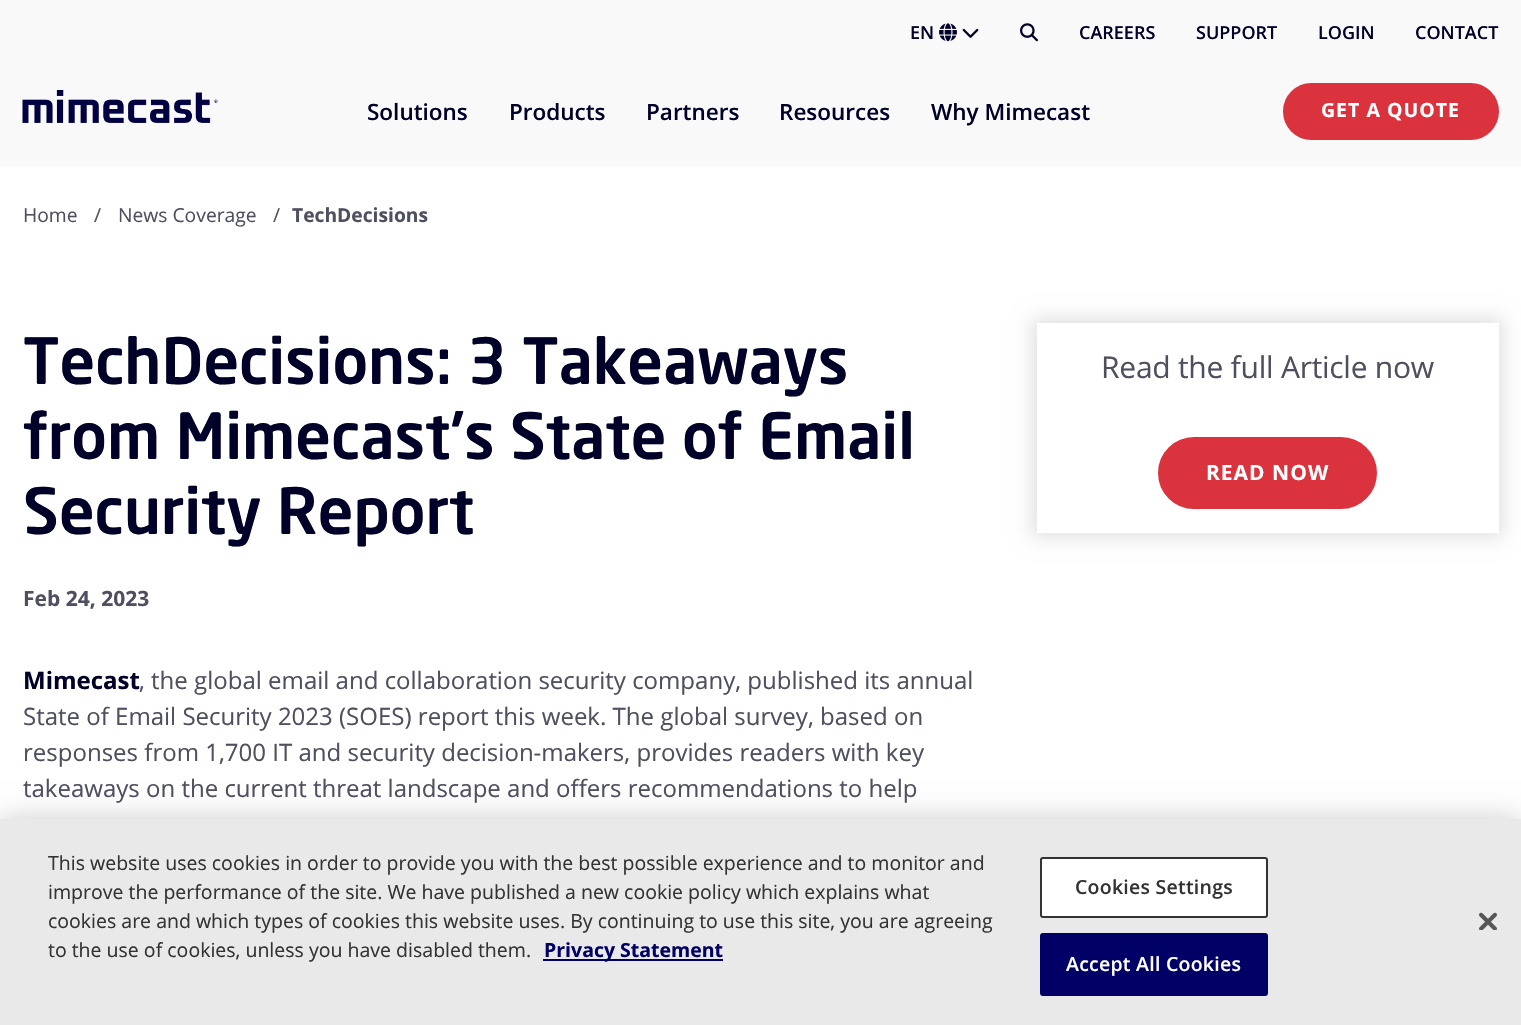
void draw(SkCanvas* canvas) {
  SkPaint paint;
  paint.setAntiAlias(true);
  auto face = [&](const char* family, int weight, float size, bool italic = false) {
    SkFontStyle style(weight, SkFontStyle::kNormal_Width,
      italic ? SkFontStyle::kItalic_Slant : SkFontStyle::kUpright_Slant);
    SkFont result(fontMgr->matchFamilyStyle(family, style), size);
    result.setSubpixel(true);
    return result;
  };
  auto writeSpaced = [&](const char* s, float x, float y, const SkFont& font, const SkPaint& ink, float letter, float word) {
    std::vector<SkGlyphID> glyphs(font.countText(s, strlen(s), SkTextEncoding::kUTF8));
    std::vector<float> xs(glyphs.size());
    font.textToGlyphs(s, strlen(s), SkTextEncoding::kUTF8, glyphs);
    font.getXPos(glyphs, xs, x);
    float extra = 0;
    for (size_t i = 0; i < glyphs.size(); i++) {
      xs[i] += extra;
      extra += letter + word * (glyphs[i] == font.unicharToGlyph(' '));
    }
    canvas->drawTextBlob(SkTextBlob::MakeFromPosHGlyphs(glyphs, xs, y, font), 0, 0, ink);
  };
  auto paste = [&](const char* path, float x, float y, float w, float h) {
    auto image = SkImages::DeferredFromEncodedData(SkData::MakeFromFileName(path));
    canvas->drawImageRect(image, SkRect::MakeXYWH(x, y, w, h), SkSamplingOptions());
  };
  canvas->clear(0xffffffff);
  paint.setColor(0xfff9f9fa);
  canvas->drawRect(SkRect::MakeXYWH(0, 0, 1521, 167), paint);
  paste("img/1.png", 939, 23, 18, 19);
  paste("img/2.png", 962, 28, 17, 10);
  paste("img/3.png", 1020, 23, 18, 19);
  paste("img/4.png", 22, 90, 196, 33);
  paint.setColor(0xffdb333e);
  canvas->drawRoundRect(SkRect::MakeXYWH(1284.5f, 84.5f, 213, 54), 27, 27, paint);
  paint.setStroke(true);
  paint.setStrokeWidth(3);
  canvas->drawRoundRect(SkRect::MakeXYWH(1284.5f, 84.5f, 213, 54), 27, 27, paint);
  paint.setStroke(false);
  paint.setColor(0x1f000000);
  paint.setMaskFilter(SkMaskFilter::MakeBlur(kNormal_SkBlurStyle, 9));
  canvas->drawRect(SkRect::MakeXYWH(1032, 318, 471, 219), paint);
  paint.setMaskFilter(nullptr);
  paint.setColor(0xffffffff);
  canvas->drawRect(SkRect::MakeXYWH(1037, 323, 462, 210), paint);
  paint.setColor(0xffdb333e);
  canvas->drawRoundRect(SkRect::MakeXYWH(1159.5f, 438.5f, 216, 69), 34.5f, 34.5f, paint);
  paint.setStroke(true);
  canvas->drawRoundRect(SkRect::MakeXYWH(1159.5f, 438.5f, 216, 69), 34.5f, 34.5f, paint);
  paint.setStroke(false);
  paint.setColor(0x33000000);
  paint.setMaskFilter(SkMaskFilter::MakeBlur(kNormal_SkBlurStyle, 13.5f));
  canvas->drawRect(SkRect::MakeXYWH(0, 819, 1521, 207), paint);
  paint.setMaskFilter(nullptr);
  paint.setColor(0xffe8e9e8);
  canvas->drawRect(SkRect::MakeXYWH(0, 819, 1521, 206), paint);
  paint.setColor(0xff000066);
  canvas->drawRect(SkRect::MakeXYWH(543, 959, 180, 2), paint);
  paint.setColor(0xffffffff);
  canvas->drawRoundRect(SkRect::MakeXYWH(1041, 858, 226, 59), 2, 2, paint);
  paint.setStroke(true);
  paint.setStrokeWidth(2);
  paint.setColor(0xff333333);
  canvas->drawRoundRect(SkRect::MakeXYWH(1041, 858, 226, 59), 2, 2, paint);
  paint.setStroke(false);
  paint.setColor(0xff000066);
  canvas->drawRoundRect(SkRect::MakeXYWH(1041, 934, 226, 61), 2, 2, paint);
  paint.setStroke(true);
  canvas->drawRoundRect(SkRect::MakeXYWH(1041, 934, 226, 61), 2, 2, paint);
  paste("img/5.png", 1479, 912, 18, 18);
  auto f0 = face("Open Sans", 600, 18);
  paint.setStroke(false);
  paint.setColor(0xff000129);
  {
    const struct { const char* s; float x, y; } items[] = {
      {"EN", 910, 39},
      {"CAREERS", 1079, 39},
      {"SUPPORT", 1196, 39},
      {"LOGIN", 1318, 39},
      {"CONTACT", 1415, 39},
    };
    for (auto [s, x, y] : items) {
      canvas->drawString(s, x, y, f0, paint);
    }
  }
  auto f1 = face("Open Sans", 600, 22.5f);
  {
    const struct { const char* s; float x, y; } items[] = {
      {"Solutions", 367, 120},
      {"Products", 509, 120},
      {"Partners", 646, 120},
      {"Resources", 779, 120},
      {"Why Mimecast", 931, 120},
    };
    for (auto [s, x, y] : items) {
      canvas->drawString(s, x, y, f1, paint);
    }
  }
  auto f2 = face("Open Sans", 700, 19.5f);
  paint.setColor(0xffffffff);
  writeSpaced("GET A QUOTE", 1321, 117, f2, paint, 1, 0);
  auto f3 = face("Open Sans", 400, 19.25f);
  paint.setColor(0xff4e4f5f);
  {
    const struct { const char* s; float x, y; } items[] = {
      {"Home", 23, 222},
      {"/", 94, 222},
      {"News Coverage", 118, 222},
      {"/", 273, 222},
    };
    for (auto [s, x, y] : items) {
      canvas->drawString(s, x, y, f3, paint);
    }
  }
  auto f4 = face("Open Sans", 700, 19.25f);
  canvas->drawString("TechDecisions", 292, 222, f4, paint);
  auto f5 = face("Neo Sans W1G", 500, 63);
  paint.setColor(0xff000129);
  {
    const struct { const char* s; float x, y; } items[] = {
      {"TechDecisions: 3 Takeaways", 23, 384},
      {"from Mimecast's State of Email", 23, 459},
      {"Security Report", 23, 534},
    };
    for (auto [s, x, y] : items) {
      writeSpaced(s, x, y, f5, paint, -0.25f, 0);
    }
  }
  auto f6 = face("Open Sans", 700, 21);
  paint.setColor(0xff4e4f5f);
  canvas->drawString("Feb 24, 2023", 23, 606, f6, paint);
  auto f7 = face("Open Sans", 700, 24);
  paint.setColor(0xff000129);
  canvas->drawString("Mimecast", 23, 689, f7, paint);
  auto f8 = face("Open Sans", 400, 24);
  paint.setColor(0xff4e4f5f);
  {
    const struct { const char* s; float x, y; } items[] = {
      {", the global email and collaboration security company, published its annual", 139, 689},
      {"State of Email Security 2023 (SOES) report this week. The global survey, based on", 23, 725},
      {"responses from 1,700 IT and security decision-makers, provides readers with key", 23, 761},
      {"takeaways on the current threat landscape and offers recommendations to help", 23, 797},
    };
    for (auto [s, x, y] : items) {
      canvas->drawString(s, x, y, f8, paint);
    }
  }
  auto f9 = face("Open Sans", 400, 30);
  writeSpaced("Read the full Article now", 1101, 378, f9, paint, -0.25f, 0);
  paint.setColor(0xffffffff);
  writeSpaced("READ NOW", 1206, 480, f6, paint, 1, 0);
  auto f10 = face("Open Sans", 400, 19.5f);
  paint.setColor(0xff333333);
  {
    const struct { const char* s; float x, y; } items[] = {
      {"This website uses cookies in order to provide you with the best possible experience and to monitor and", 48, 870},
      {"improve the performance of the site. We have published a new cookie policy which explains what", 48, 899},
      {"cookies are and which types of cookies this website uses. By continuing to use this site, you are agreeing", 48, 928},
      {"to the use of cookies, unless you have disabled them.", 48, 957},
    };
    for (auto [s, x, y] : items) {
      canvas->drawString(s, x, y, f10, paint);
    }
  }
  paint.setColor(0xff000066);
  canvas->drawString("Privacy Statement", 544, 957, f2, paint);
  auto f11 = face("Open Sans", 600, 19.5f);
  paint.setColor(0xff333333);
  writeSpaced("Cookies Settings", 1075, 894, f11, paint, 0.25f, 0);
  paint.setColor(0xffffffff);
  writeSpaced("Accept All Cookies", 1066, 971, f11, paint, 0.25f, 0);
}
